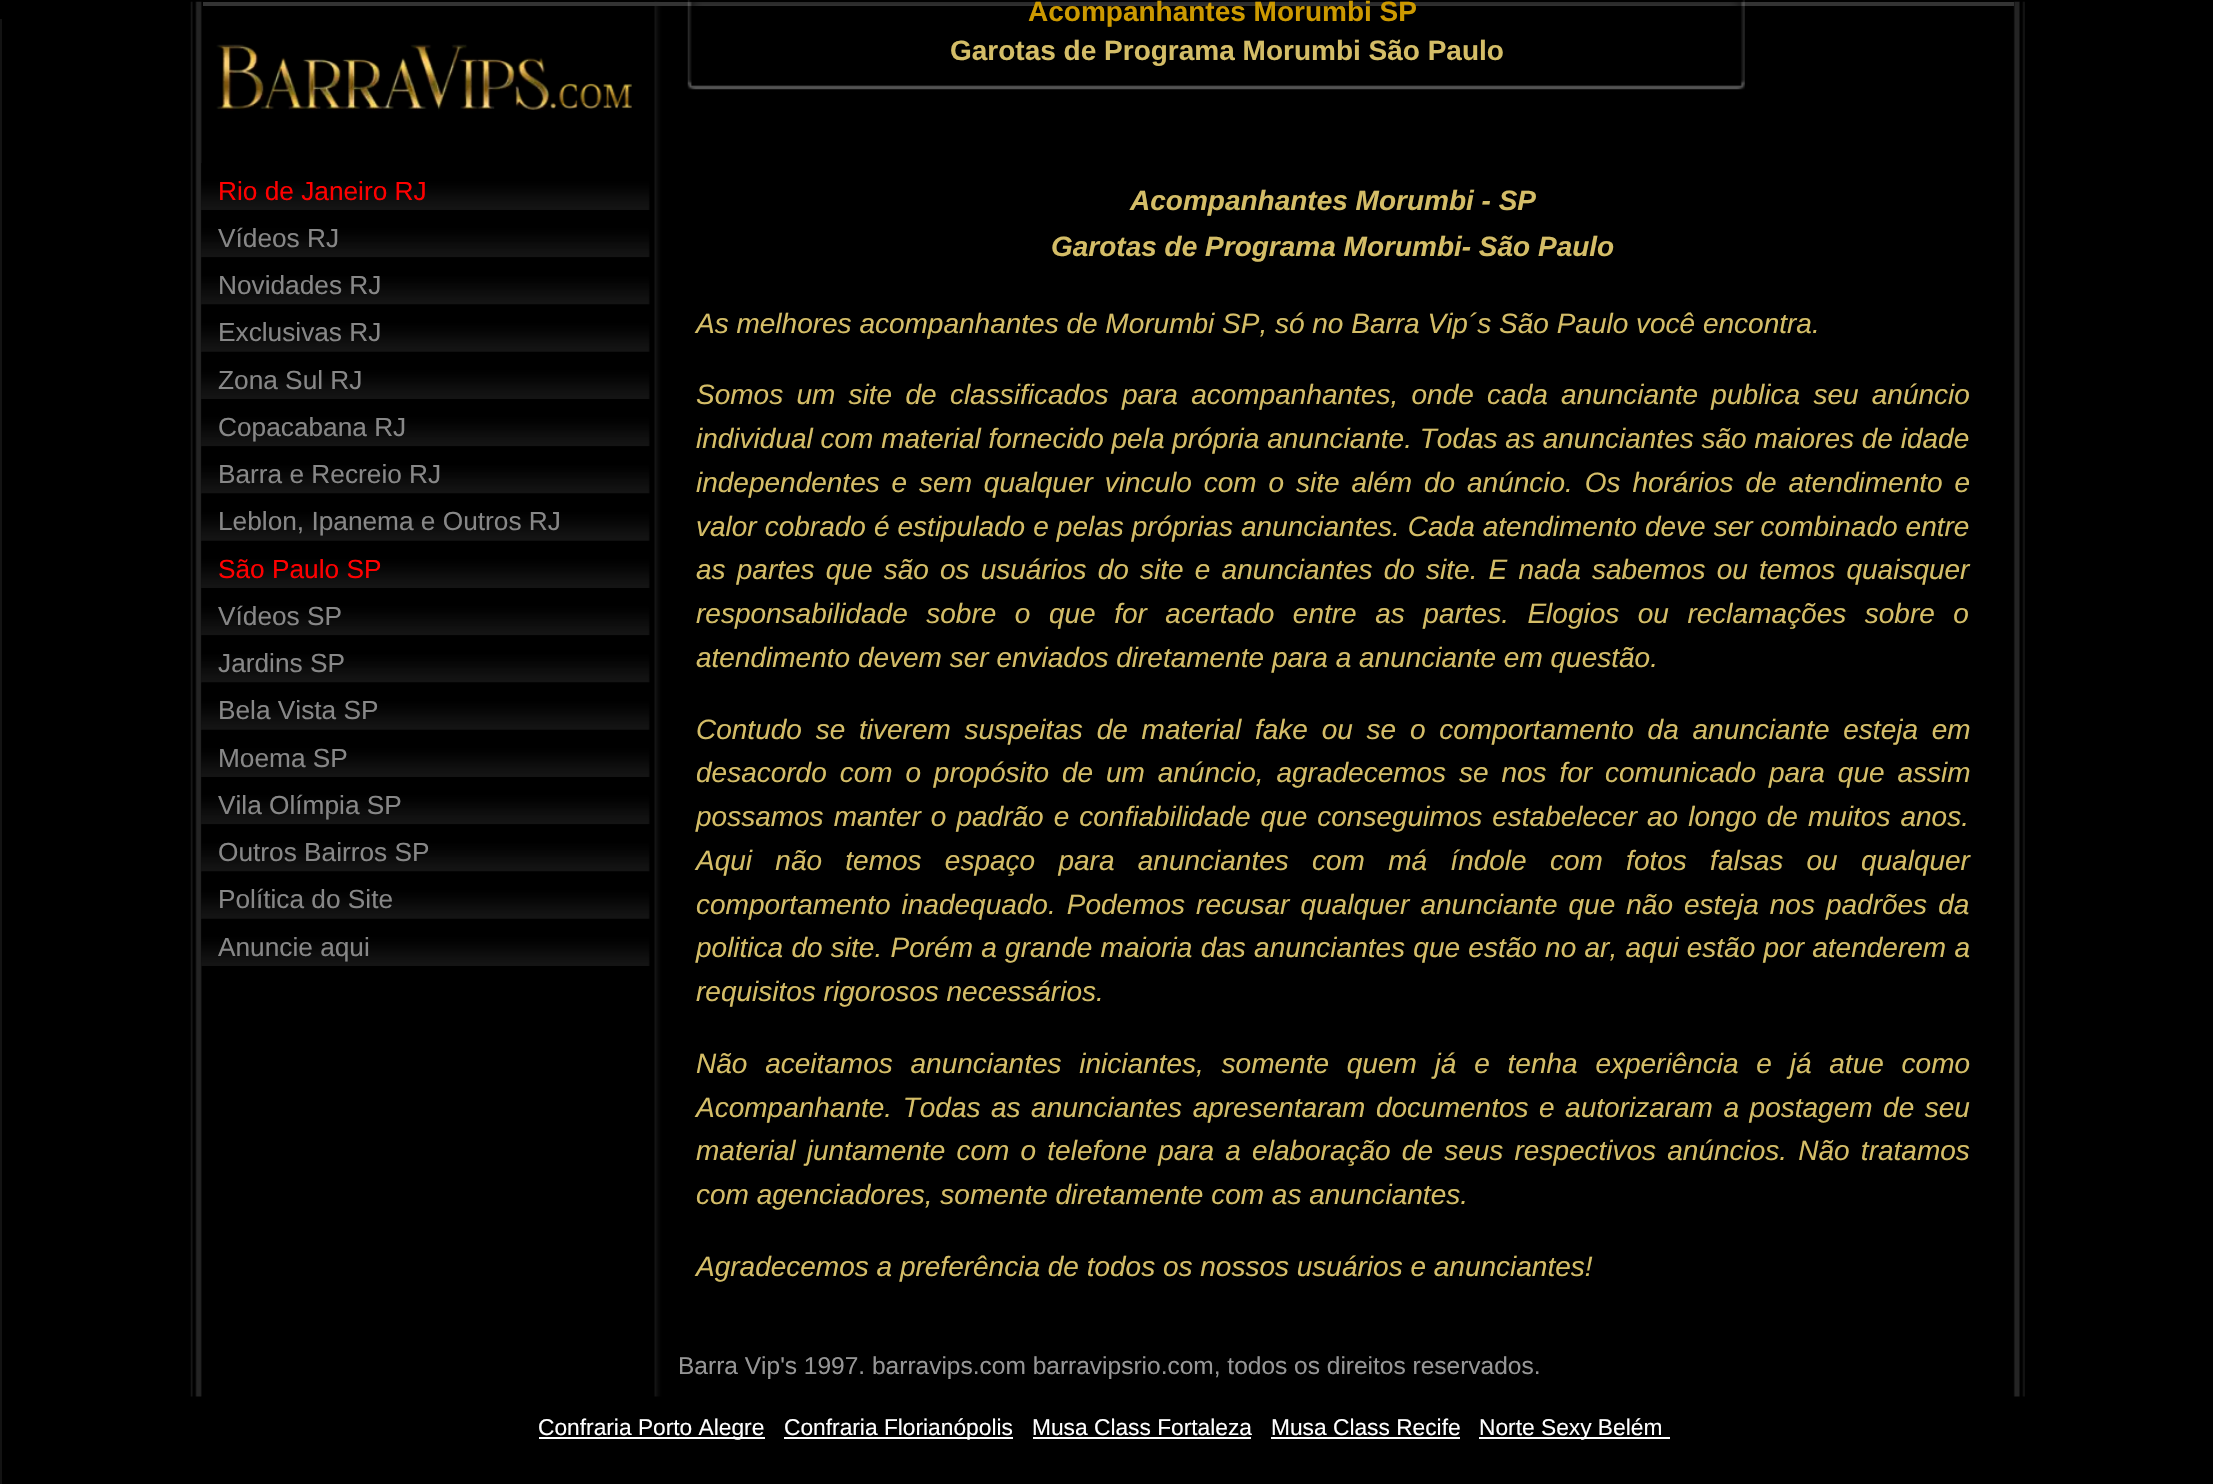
void draw(SkCanvas* canvas) {
  SkPaint paint;
  paint.setAntiAlias(true);
  auto face = [&](const char* family, int weight, float size, bool italic = false) {
    SkFontStyle style(weight, SkFontStyle::kNormal_Width,
      italic ? SkFontStyle::kItalic_Slant : SkFontStyle::kUpright_Slant);
    SkFont result(fontMgr->matchFamilyStyle(family, style), size);
    result.setSubpixel(true);
    return result;
  };
  auto writeSpaced = [&](const char* s, float x, float y, const SkFont& font, const SkPaint& ink, float letter, float word) {
    std::vector<SkGlyphID> glyphs(font.countText(s, strlen(s), SkTextEncoding::kUTF8));
    std::vector<float> xs(glyphs.size());
    font.textToGlyphs(s, strlen(s), SkTextEncoding::kUTF8, glyphs);
    font.getXPos(glyphs, xs, x);
    float extra = 0;
    for (size_t i = 0; i < glyphs.size(); i++) {
      xs[i] += extra;
      extra += letter + word * (glyphs[i] == font.unicharToGlyph(' '));
    }
    canvas->drawTextBlob(SkTextBlob::MakeFromPosHGlyphs(glyphs, xs, y, font), 0, 0, ink);
  };
  auto paste = [&](const char* path, float x, float y, float w, float h) {
    auto image = SkImages::DeferredFromEncodedData(SkData::MakeFromFileName(path));
    canvas->drawImageRect(image, SkRect::MakeXYWH(x, y, w, h), SkSamplingOptions());
  };
  canvas->clear(0xff000000);
  paste("img/1.png", 190, 1, 1835, 1396);
  paint.setColor(0xff131313);
  canvas->drawRect(SkRect::MakeXYWH(0, 19, 2, 1465), paint);
  paint.setColor(0xff333333);
  canvas->drawRect(SkRect::MakeXYWH(203, 2, 1811, 4), paint);
  paste("img/2.png", 687, 0, 1058, 90);
  paste("img/3.png", 216, 44, 416, 67);
  paste("img/4.png", 201, 163, 449, 47);
  paste("img/5.png", 201, 210, 449, 48);
  paste("img/6.png", 201, 257, 449, 48);
  paste("img/7.png", 201, 304, 449, 48);
  paste("img/4.png", 201, 352, 449, 47);
  paste("img/8.png", 201, 399, 449, 48);
  paste("img/6.png", 201, 446, 449, 48);
  paste("img/7.png", 201, 493, 449, 48);
  paste("img/4.png", 201, 541, 449, 47);
  paste("img/8.png", 201, 588, 449, 48);
  paste("img/6.png", 201, 635, 449, 48);
  paste("img/7.png", 201, 682, 449, 48);
  paste("img/4.png", 201, 730, 449, 47);
  paste("img/8.png", 201, 777, 449, 48);
  paste("img/6.png", 201, 824, 449, 48);
  paste("img/7.png", 201, 871, 449, 48);
  paste("img/4.png", 201, 919, 449, 47);
  {
    const struct { float x, y, w, h; SkColor color; } items[] = {
      {539, 1437, 226, 2, 0xffffffff},
      {784, 1437, 229, 2, 0xffffffff},
      {1033, 1437, 218, 2, 0xffffffff},
      {1271, 1437, 189, 2, 0xffffffff},
      {1479, 1437, 191, 2, 0xffffffff},
    };
    for (auto [x, y, w, h, color] : items) {
      paint.setColor(color);
      canvas->drawRect(SkRect::MakeXYWH(x, y, w, h), paint);
    }
  }
  auto f0 = face("Liberation Sans", 700, 28);
  paint.setColor(0xffcc9900);
  canvas->drawString("Acompanhantes Morumbi SP", 1028, 21, f0, paint);
  paint.setColor(0xffd4bd67);
  canvas->drawString("Garotas de Programa Morumbi São Paulo", 950, 60, f0, paint);
  auto f1 = face("Liberation Sans", 700, 28, true);
  canvas->drawString("Acompanhantes Morumbi - SP", 1130, 210, f1, paint);
  canvas->drawString("Garotas de Programa Morumbi- São Paulo", 1051, 256, f1, paint);
  auto f2 = face("Liberation Sans", 400, 28, true);
  canvas->drawString("As melhores acompanhantes de Morumbi SP, só no Barra Vip´s São Paulo você encontra.", 696, 333, f2, paint);
  writeSpaced("Somos um site de classificados para acompanhantes, onde cada anunciante publica seu anúncio", 696, 404, f2, paint, 0, 5.5f);
  canvas->drawString("individual com material fornecido pela própria anunciante. Todas as anunciantes são maiores de idade", 696, 448, f2, paint);
  writeSpaced("independentes e sem qualquer vinculo com o site além do anúncio. Os horários de atendimento e", 696, 492, f2, paint, 0, 4.1f);
  writeSpaced("valor cobrado é estipulado e pelas próprias anunciantes. Cada atendimento deve ser combinado entre", 696, 536, f2, paint, 0, 0.25f);
  writeSpaced("as partes que são os usuários do site e anunciantes do site. E nada sabemos ou temos quaisquer", 696, 579, f2, paint, 0, 3.4f);
  writeSpaced("responsabilidade sobre o que for acertado entre as partes. Elogios ou reclamações sobre o", 696, 623, f2, paint, 0, 10.75f);
  canvas->drawString("atendimento devem ser enviados diretamente para a anunciante em questão.", 696, 667, f2, paint);
  writeSpaced("Contudo se tiverem suspeitas de material fake ou se o comportamento da anunciante esteja em", 696, 739, f2, paint, 0, 6);
  writeSpaced("desacordo com o propósito de um anúncio, agradecemos se nos for comunicado para que assim", 696, 782, f2, paint, 0, 5.1f);
  writeSpaced("possamos manter o padrão e confiabilidade que conseguimos estabelecer ao longo de muitos anos.", 696, 826, f2, paint, 0, 2.25f);
  writeSpaced("Aqui não temos espaço para anunciantes com má índole com fotos falsas ou qualquer", 696, 870, f2, paint, 0, 15.5f);
  writeSpaced("comportamento inadequado. Podemos recusar qualquer anunciante que não esteja nos padrões da", 696, 914, f2, paint, 0, 3.25f);
  writeSpaced("politica do site. Porém a grande maioria das anunciantes que estão no ar, aqui estão por atenderem a", 696, 957, f2, paint, 0, 0.5f);
  canvas->drawString("requisitos rigorosos necessários.", 696, 1001, f2, paint);
  writeSpaced("Não aceitamos anunciantes iniciantes, somente quem já e tenha experiência e já atue como", 696, 1073, f2, paint, 0, 10);
  writeSpaced("Acompanhante. Todas as anunciantes apresentaram documentos e autorizaram a postagem de seu", 696, 1117, f2, paint, 0, 2.75f);
  writeSpaced("material juntamente com o telefone para a elaboração de seus respectivos anúncios. Não tratamos", 696, 1160, f2, paint, 0, 3.4f);
  canvas->drawString("com agenciadores, somente diretamente com as anunciantes.", 696, 1204, f2, paint);
  canvas->drawString("Agradecemos a preferência de todos os nossos usuários e anunciantes!", 696, 1276, f2, paint);
  auto f3 = face("Liberation Sans", 400, 26.25f);
  paint.setColor(0xffff0000);
  canvas->drawString("Rio de Janeiro RJ", 218, 200, f3, paint);
  paint.setColor(0xff878787);
  {
    const struct { const char* s; float x, y; } items[] = {
      {"Vídeos RJ", 218, 247},
      {"Novidades RJ", 218, 294},
      {"Exclusivas RJ", 218, 341},
      {"Zona Sul RJ", 218, 389},
      {"Copacabana RJ", 218, 436},
      {"Barra e Recreio RJ", 218, 483},
      {"Leblon, Ipanema e Outros RJ", 218, 530},
    };
    for (auto [s, x, y] : items) {
      canvas->drawString(s, x, y, f3, paint);
    }
  }
  paint.setColor(0xffff0000);
  canvas->drawString("São Paulo SP", 218, 578, f3, paint);
  paint.setColor(0xff878787);
  {
    const struct { const char* s; float x, y; } items[] = {
      {"Vídeos SP", 218, 625},
      {"Jardins SP", 218, 672},
      {"Bela Vista SP", 218, 719},
      {"Moema SP", 218, 767},
      {"Vila Olímpia SP", 218, 814},
      {"Outros Bairros SP", 218, 861},
      {"Política do Site", 218, 908},
      {"Anuncie aqui", 218, 956},
    };
    for (auto [s, x, y] : items) {
      canvas->drawString(s, x, y, f3, paint);
    }
  }
  auto f4 = face("Liberation Sans", 400, 24.5f);
  paint.setColor(0xff969696);
  canvas->drawString("Barra Vip's 1997. barravips.com barravipsrio.com, todos os direitos reservados.", 678, 1374, f4, paint);
  auto f5 = face("Liberation Sans", 400, 22.75f);
  paint.setColor(0xffffffff);
  {
    const struct { const char* s; float x, y; } items[] = {
      {"Confraria Porto Alegre", 538, 1435},
      {"Confraria Florianópolis", 784, 1435},
      {"Musa Class Fortaleza", 1032, 1435},
      {"Musa Class Recife", 1271, 1435},
      {"Norte Sexy Belém", 1479, 1435},
    };
    for (auto [s, x, y] : items) {
      canvas->drawString(s, x, y, f5, paint);
    }
  }
}
